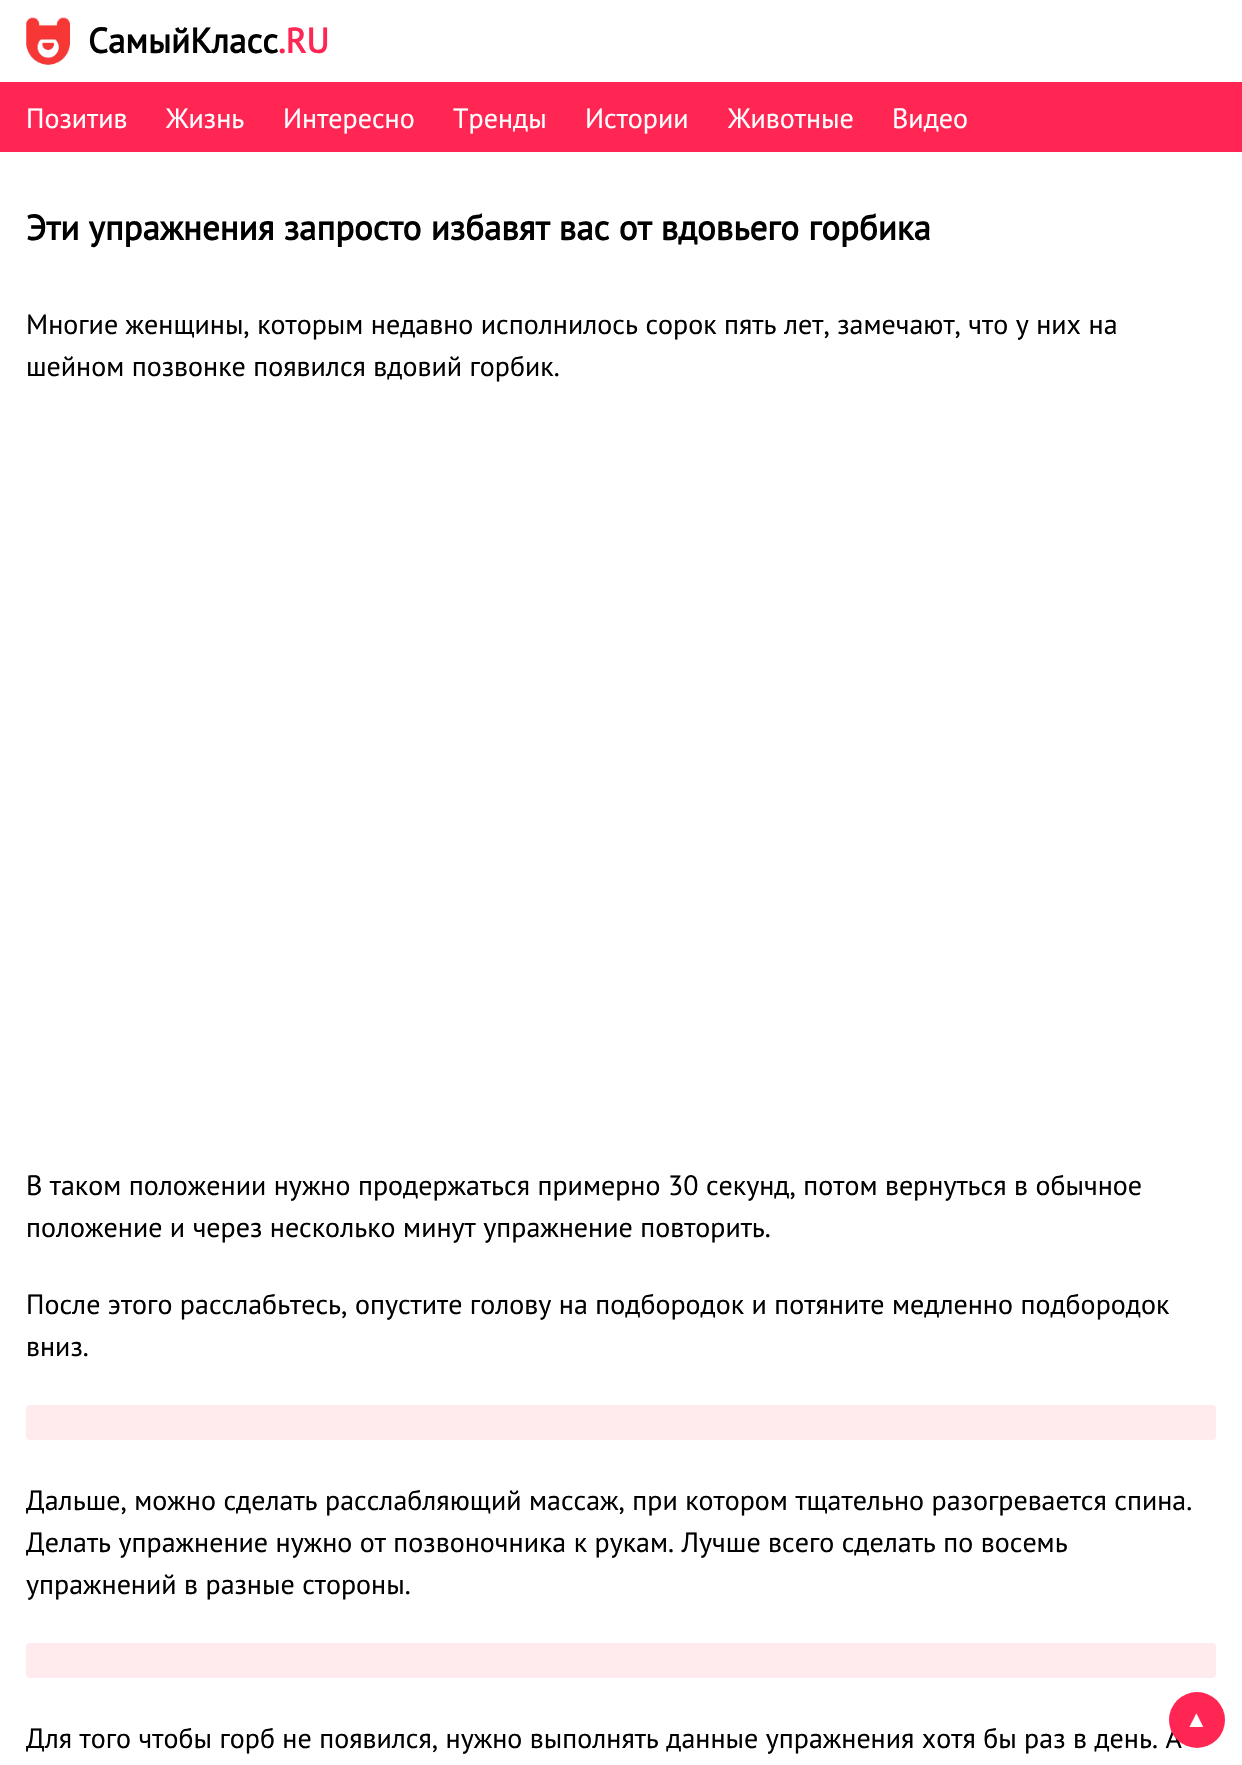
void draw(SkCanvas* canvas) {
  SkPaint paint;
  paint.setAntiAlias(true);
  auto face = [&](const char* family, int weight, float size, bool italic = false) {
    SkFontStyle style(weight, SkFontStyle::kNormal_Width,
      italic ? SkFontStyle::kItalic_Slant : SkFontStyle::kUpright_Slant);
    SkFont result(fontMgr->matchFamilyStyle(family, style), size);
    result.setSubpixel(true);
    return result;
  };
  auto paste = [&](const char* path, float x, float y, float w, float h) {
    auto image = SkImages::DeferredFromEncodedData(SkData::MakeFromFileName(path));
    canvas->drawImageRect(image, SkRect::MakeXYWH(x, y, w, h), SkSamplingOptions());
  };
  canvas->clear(0xffffffff);
  paste("img/1.png", 26, 17, 44, 48);
  paint.setColor(0xffff2654);
  canvas->drawRect(SkRect::MakeXYWH(0, 82, 1242, 70), paint);
  paint.setColor(0xffffebee);
  canvas->drawRoundRect(SkRect::MakeXYWH(26, 1405, 1190, 35), 4, 4, paint);
  canvas->drawRoundRect(SkRect::MakeXYWH(26, 1643, 1190, 35), 4, 4, paint);
  auto f0 = face("PT Sans", 700, 35);
  paint.setColor(0xff000000);
  canvas->drawString("СамыйКласс", 88, 53, f0, paint);
  paint.setColor(0xffff2654);
  canvas->drawString(".RU", 278, 53, f0, paint);
  auto f1 = face("PT Sans", 400, 28);
  paint.setColor(0xffffffff);
  {
    const struct { const char* s; float x, y; } items[] = {
      {"Позитив", 26, 128},
      {"Жизнь", 166, 128},
      {"Интересно", 283, 128},
      {"Тренды", 453, 128},
      {"Истории", 585, 128},
      {"Животные", 728, 128},
      {"Видео", 892, 128},
    };
    for (auto [s, x, y] : items) {
      canvas->drawString(s, x, y, f1, paint);
    }
  }
  paint.setColor(0xff000000);
  canvas->drawString("Эти упражнения запросто избавят вас от вдовьего горбика", 26, 240, f0, paint);
  {
    const struct { const char* s; float x, y; } items[] = {
      {"Многие женщины, которым недавно исполнилось сорок пять лет, замечают, что у них на", 26, 334},
      {"шейном позвонке появился вдовий горбик.", 26, 376},
      {"В таком положении нужно продержаться примерно 30 секунд, потом вернуться в обычное", 26, 1195},
      {"положение и через несколько минут упражнение повторить.", 26, 1237},
      {"После этого расслабьтесь, опустите голову на подбородок и потяните медленно подбородок", 26, 1314},
      {"вниз.", 26, 1356},
      {"Дальше, можно сделать расслабляющий массаж, при котором тщательно разогревается спина.", 26, 1510},
      {"Делать упражнение нужно от позвоночника к рукам. Лучше всего сделать по восемь", 26, 1552},
      {"упражнений в разные стороны.", 26, 1594},
      {"Для того чтобы горб не появился, нужно выполнять данные упражнения хотя бы раз в день. А", 26, 1748},
    };
    for (auto [s, x, y] : items) {
      canvas->drawString(s, x, y, f1, paint);
    }
  }
  paint.setColor(0xffff2654);
  canvas->drawCircle(1197, 1720, 28, paint);
  auto f2 = face("Liberation Sans", 400, 23);
  paint.setColor(0xffffffff);
  canvas->drawString("▲", 1185, 1727, f2, paint);
}
